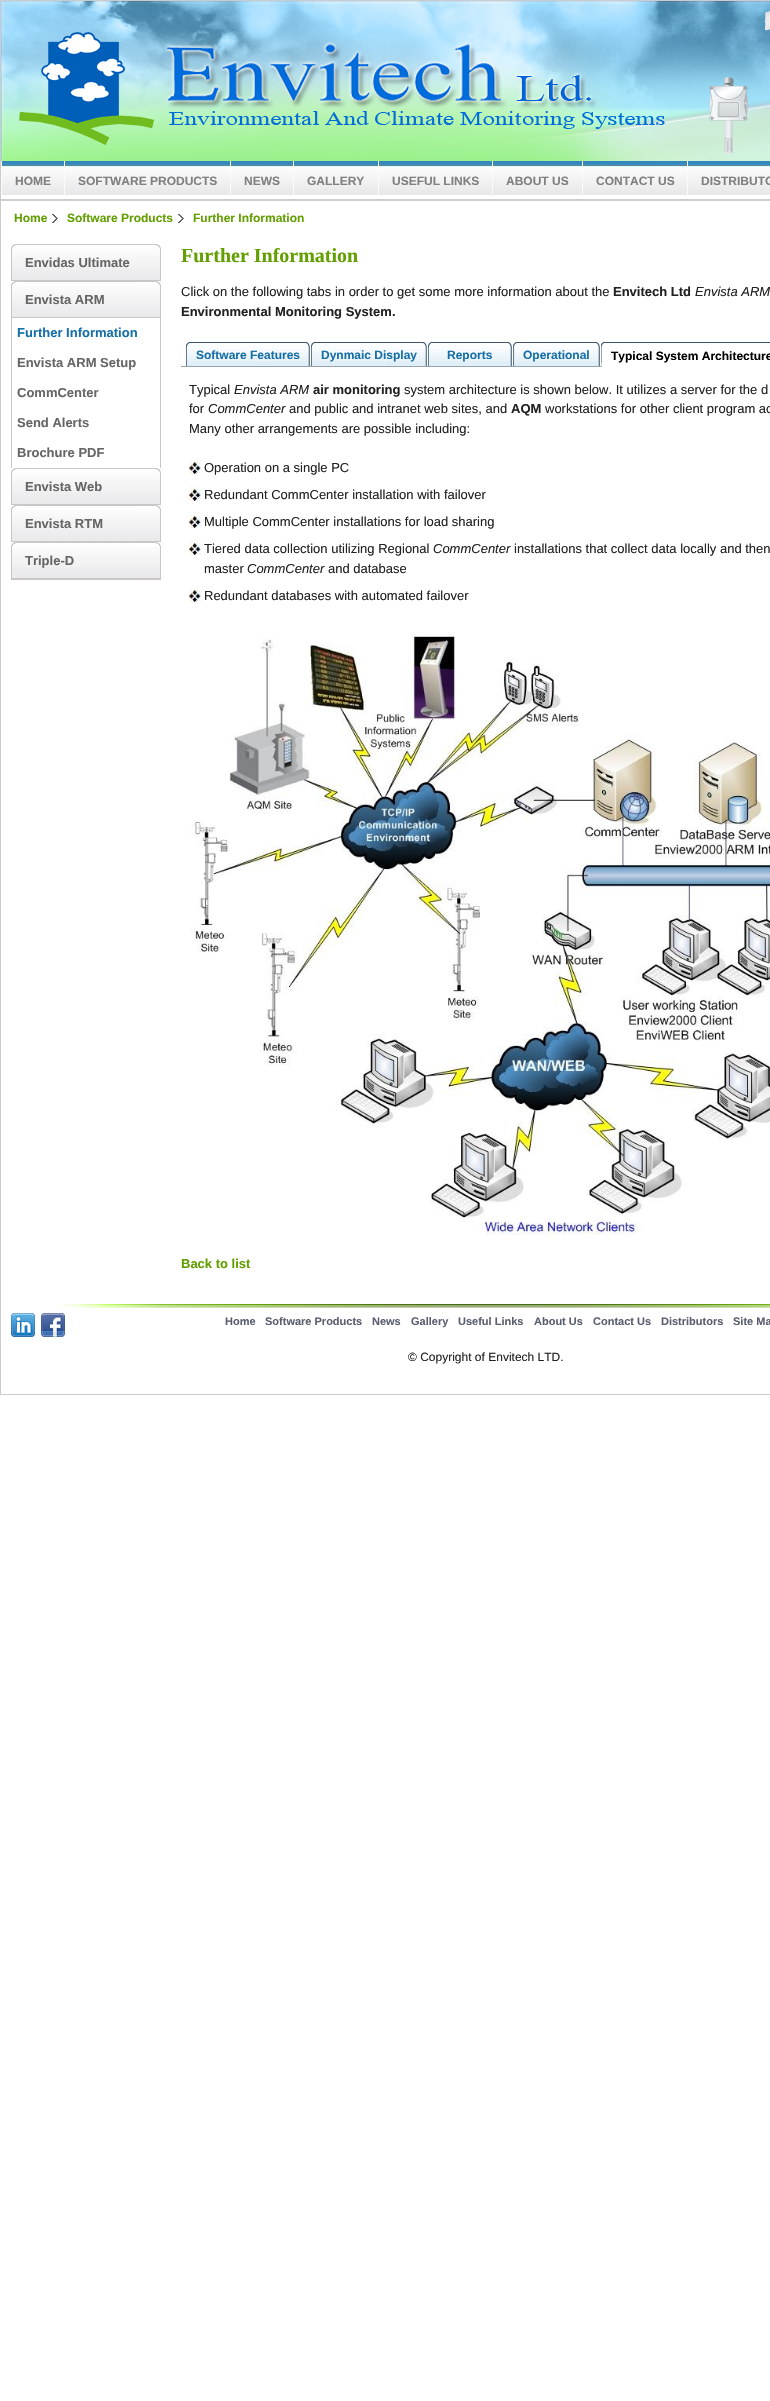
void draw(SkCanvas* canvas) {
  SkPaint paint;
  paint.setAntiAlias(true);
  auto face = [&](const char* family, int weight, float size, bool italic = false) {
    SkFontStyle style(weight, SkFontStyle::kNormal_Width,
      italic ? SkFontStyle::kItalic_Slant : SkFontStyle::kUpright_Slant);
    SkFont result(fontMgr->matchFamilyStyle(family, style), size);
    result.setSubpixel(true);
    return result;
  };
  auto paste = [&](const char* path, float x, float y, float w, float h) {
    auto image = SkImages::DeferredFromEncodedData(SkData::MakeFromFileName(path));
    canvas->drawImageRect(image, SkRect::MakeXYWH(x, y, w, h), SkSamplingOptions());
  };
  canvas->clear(0xffffffff);
  paint.setStroke(true);
  paint.setStrokeWidth(1);
  paint.setColor(0xffcccccc);
  canvas->drawRect(SkRect::MakeXYWH(0.5f, 0.5f, 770, 1394), paint);
  paste("img/1.png", 1, 1, 769, 160);
  paste("img/2.png", 1, 161, 769, 40);
  paint.setStroke(false);
  {
    const struct { float x, y, w, h; SkColor color; } items[] = {
      {1, 161, 1, 37, 0xfffdfaf7},
      {64, 161, 1, 37, 0xfffdfaf7},
      {230, 161, 1, 37, 0xfffdfaf7},
      {293, 161, 1, 37, 0xfffdfaf7},
      {378, 161, 1, 37, 0xfffdfaf7},
      {492, 161, 1, 37, 0xfffdfaf7},
      {582, 161, 1, 37, 0xfffdfaf7},
      {687, 161, 1, 37, 0xfffdfaf7},
    };
    for (auto [x, y, w, h, color] : items) {
      paint.setColor(color);
      canvas->drawRect(SkRect::MakeXYWH(x, y, w, h), paint);
    }
  }
  paste("img/3.png", 52, 214, 6, 9);
  paste("img/3.png", 178, 214, 6, 9);
  paint.setColor(0xffc9c6c6);
  canvas->drawRect(SkRect::MakeXYWH(11, 579, 150, 1), paint);
  paste("img/4.png", 11, 244, 150, 37);
  paste("img/4.png", 11, 281, 150, 37);
  canvas->drawRect(SkRect::MakeXYWH(160, 318, 1, 150), paint);
  canvas->drawRect(SkRect::MakeXYWH(11, 318, 1, 150), paint);
  paste("img/4.png", 11, 468, 150, 37);
  paste("img/4.png", 11, 505, 150, 37);
  paste("img/4.png", 11, 542, 150, 37);
  paste("img/5.png", 271, 342, 39, 24);
  paste("img/6.png", 186, 342, 85, 24);
  paste("img/7.png", 390, 342, 37, 24);
  paste("img/8.png", 311, 342, 79, 24);
  paste("img/9.png", 472, 342, 40, 24);
  paste("img/10.png", 428, 342, 44, 24);
  paste("img/9.png", 560, 342, 40, 24);
  paste("img/11.png", 513, 342, 47, 24);
  paste("img/12.png", 601, 342, 169, 25);
  paint.setColor(0xff97a5b0);
  canvas->drawRect(SkRect::MakeXYWH(181, 366, 420, 1), paint);
  paste("img/13.png", 189, 458, 12, 16);
  paste("img/13.png", 189, 485, 12, 16);
  paste("img/13.png", 189, 512, 12, 16);
  paste("img/13.png", 189, 539, 12, 16);
  paste("img/13.png", 189, 586, 12, 16);
  paste("img/14.png", 191, 632, 579, 603);
  paste("img/15.png", 59, 1304, 711, 4);
  paste("img/16.png", 11, 1313, 24, 24);
  paste("img/17.png", 41, 1313, 24, 24);
  auto f0 = face("Liberation Sans", 700, 12);
  paint.setColor(0xff808080);
  {
    const struct { const char* s; float x, y; } items[] = {
      {"HOME", 15, 185},
      {"SOFTWARE PRODUCTS", 78, 185},
      {"NEWS", 244, 185},
      {"GALLERY", 307, 185},
      {"USEFUL LINKS", 392, 185},
      {"ABOUT US", 506, 185},
      {"CONTACT US", 596, 185},
      {"DISTRIBUTO", 701, 185},
    };
    for (auto [s, x, y] : items) {
      canvas->drawString(s, x, y, f0, paint);
    }
  }
  paint.setColor(0xff629f00);
  {
    const struct { const char* s; float x, y; } items[] = {
      {"Home", 14, 222},
      {"Software Products", 67, 222},
      {"Further Information", 193, 222},
    };
    for (auto [s, x, y] : items) {
      canvas->drawString(s, x, y, f0, paint);
    }
  }
  auto f1 = face("Liberation Sans", 700, 13);
  paint.setColor(0xff666666);
  canvas->drawString("Envidas Ultimate", 25, 267, f1, paint);
  canvas->drawString("Envista ARM", 25, 304, f1, paint);
  paint.setColor(0xff166fa7);
  canvas->drawString("Further Information", 17, 337, f1, paint);
  paint.setColor(0xff666666);
  {
    const struct { const char* s; float x, y; } items[] = {
      {"Envista ARM Setup", 17, 367},
      {"CommCenter", 17, 397},
      {"Send Alerts", 17, 427},
      {"Brochure PDF", 17, 457},
      {"Envista Web", 25, 491},
      {"Envista RTM", 25, 528},
      {"Triple-D", 25, 565},
    };
    for (auto [s, x, y] : items) {
      canvas->drawString(s, x, y, f1, paint);
    }
  }
  auto f2 = face("Liberation Serif", 700, 20);
  paint.setColor(0xff629f00);
  canvas->drawString("Further Information", 181, 262, f2, paint);
  auto f3 = face("Liberation Sans", 400, 13);
  paint.setColor(0xff222222);
  canvas->drawString("Click on the following tabs in order to get some more information about the", 181, 296, f3, paint);
  canvas->drawString("Envitech Ltd", 613, 296, f1, paint);
  auto f4 = face("Liberation Sans", 400, 13, true);
  canvas->drawString("Envista ARM", 695, 296, f4, paint);
  canvas->drawString("Environmental Monitoring System.", 181, 316, f1, paint);
  paint.setColor(0xff166fa7);
  {
    const struct { const char* s; float x, y; } items[] = {
      {"Software Features", 196, 359},
      {"Dynmaic Display", 321, 359},
      {"Reports", 447, 359},
      {"Operational", 523, 359},
    };
    for (auto [s, x, y] : items) {
      canvas->drawString(s, x, y, f0, paint);
    }
  }
  paint.setColor(0xff000000);
  canvas->drawString("Typical System Architecture", 611, 360, f0, paint);
  paint.setColor(0xff222222);
  canvas->drawString("Typical", 189, 394, f3, paint);
  canvas->drawString("Envista ARM", 234, 394, f4, paint);
  canvas->drawString("air monitoring", 313, 394, f1, paint);
  canvas->drawString("system architecture is shown below. It utilizes a server for the d", 404, 394, f3, paint);
  canvas->drawString("for", 189, 413, f3, paint);
  canvas->drawString("CommCenter", 208, 413, f4, paint);
  canvas->drawString("and public and intranet web sites, and", 289, 413, f3, paint);
  canvas->drawString("AQM", 511, 413, f1, paint);
  {
    const struct { const char* s; float x, y; } items[] = {
      {"workstations for other client program ac", 545, 413},
      {"Many other arrangements are possible including:", 189, 433},
      {"Operation on a single PC", 204, 472},
      {"Redundant CommCenter installation with failover", 204, 499},
      {"Multiple CommCenter installations for load sharing", 204, 526},
      {"Tiered data collection utilizing Regional", 204, 553},
    };
    for (auto [s, x, y] : items) {
      canvas->drawString(s, x, y, f3, paint);
    }
  }
  canvas->drawString("CommCenter", 433, 553, f4, paint);
  canvas->drawString("installations that collect data locally and then", 514, 553, f3, paint);
  canvas->drawString("master", 204, 573, f3, paint);
  canvas->drawString("CommCenter", 247, 573, f4, paint);
  canvas->drawString("and database", 328, 573, f3, paint);
  canvas->drawString("Redundant databases with automated failover", 204, 600, f3, paint);
  paint.setColor(0xff629f00);
  canvas->drawString("Back to list", 181, 1268, f1, paint);
  auto f5 = face("Liberation Sans", 700, 11);
  paint.setColor(0xff5a5e6f);
  {
    const struct { const char* s; float x, y; } items[] = {
      {"Home", 225, 1325},
      {"Software Products", 265, 1325},
      {"News", 372, 1325},
      {"Gallery", 411, 1325},
      {"Useful Links", 458, 1325},
      {"About Us", 534, 1325},
      {"Contact Us", 593, 1325},
      {"Distributors", 661, 1325},
      {"Site Ma", 733, 1325},
    };
    for (auto [s, x, y] : items) {
      canvas->drawString(s, x, y, f5, paint);
    }
  }
  auto f6 = face("Liberation Sans", 400, 12);
  paint.setColor(0xff222222);
  canvas->drawString("© Copyright of Envitech LTD.", 408, 1361, f6, paint);
}
